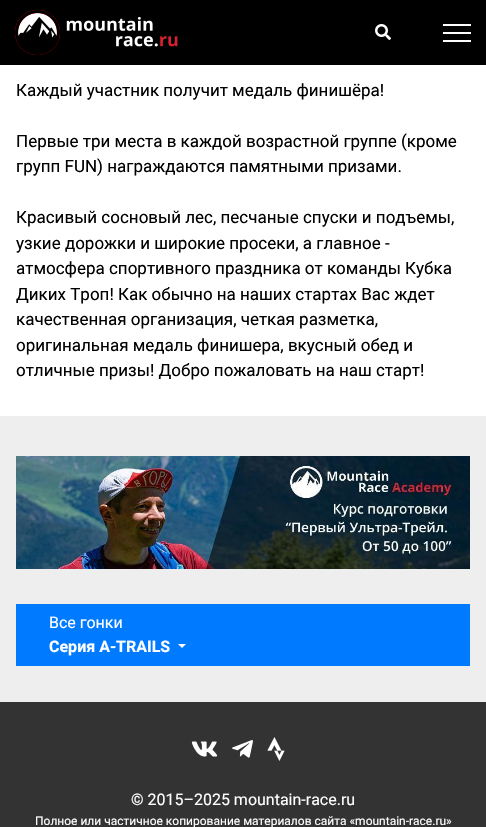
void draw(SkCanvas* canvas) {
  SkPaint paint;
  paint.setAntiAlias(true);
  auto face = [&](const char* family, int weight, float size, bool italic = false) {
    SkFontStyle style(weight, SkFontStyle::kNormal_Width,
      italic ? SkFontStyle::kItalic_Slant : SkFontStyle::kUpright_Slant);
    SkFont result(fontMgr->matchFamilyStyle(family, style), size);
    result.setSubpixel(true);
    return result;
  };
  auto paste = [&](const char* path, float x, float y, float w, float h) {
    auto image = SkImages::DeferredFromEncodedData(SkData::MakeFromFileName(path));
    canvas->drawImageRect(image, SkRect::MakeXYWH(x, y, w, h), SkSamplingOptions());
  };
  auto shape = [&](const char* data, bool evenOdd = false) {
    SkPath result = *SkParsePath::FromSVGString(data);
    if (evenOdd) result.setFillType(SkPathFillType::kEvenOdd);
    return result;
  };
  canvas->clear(0xffeeeeee);
  paint.setColor(0xff000000);
  canvas->drawRect(SkRect::MakeXYWH(0, 0, 486, 65), paint);
  paste("img/1.png", 15, 10, 163, 45);
  paste("img/2.png", 375, 24, 16, 16);
  {
    const struct { float x, y, w, h; SkColor color; } items[] = {
      {443, 32, 28, 2, 0xffffffff},
      {443, 24, 28, 2, 0xffffffff},
      {443, 40, 28, 2, 0xffffffff},
      {0, 65, 486, 351, 0xffffffff},
    };
    for (auto [x, y, w, h, color] : items) {
      paint.setColor(color);
      canvas->drawRect(SkRect::MakeXYWH(x, y, w, h), paint);
    }
  }
  paste("img/3.png", 16, 456, 454, 113);
  paint.setColor(0xff007bff);
  canvas->drawRect(SkRect::MakeXYWH(16, 604, 454, 62), paint);
  paint.setColor(0xffffffff);
  canvas->drawPath(shape("M178 644H186L182 648Z"), paint);
  paint.setColor(0xff333333);
  canvas->drawRect(SkRect::MakeXYWH(0, 702, 486, 125), paint);
  paste("img/4.png", 191, 741, 27, 16);
  paste("img/5.png", 232, 740, 21, 18);
  paste("img/6.png", 267, 737, 18, 24);
  auto f0 = face("Roboto", 400, 17);
  paint.setColor(0xff000000);
  {
    const struct { const char* s; float x, y; } items[] = {
      {"Каждый участник получит медаль финишёра!", 16, 96},
      {"Первые три места в каждой возрастной группе (кроме", 16, 147},
      {"групп FUN) награждаются памятными призами.", 16, 172},
      {"Красивый сосновый лес, песчаные спуски и подъемы,", 16, 223},
      {"узкие дорожки и широкие просеки, а главное -", 16, 249},
      {"атмосфера спортивного праздника от команды Кубка", 16, 274},
      {"Диких Троп! Как обычно на наших стартах Вас ждет", 16, 300},
      {"качественная организация, четкая разметка,", 16, 325},
      {"оригинальная медаль финишера, вкусный обед и", 16, 351},
      {"отличные призы! Добро пожаловать на наш старт!", 16, 376},
    };
    for (auto [s, x, y] : items) {
      canvas->drawString(s, x, y, f0, paint);
    }
  }
  auto f1 = face("Roboto", 400, 16);
  paint.setColor(0xffffffff);
  canvas->drawString("Все гонки", 49, 628, f1, paint);
  auto f2 = face("Roboto", 700, 16);
  canvas->drawString("Серия A-TRAILS", 49, 652, f2, paint);
  canvas->drawString("© 2015–2025 mountain-race.ru", 131, 805, f1, paint);
  auto f3 = face("Roboto", 400, 12);
  canvas->drawString("Полное или частичное копирование материалов сайта «mountain-race.ru»", 35, 825, f3, paint);
}
